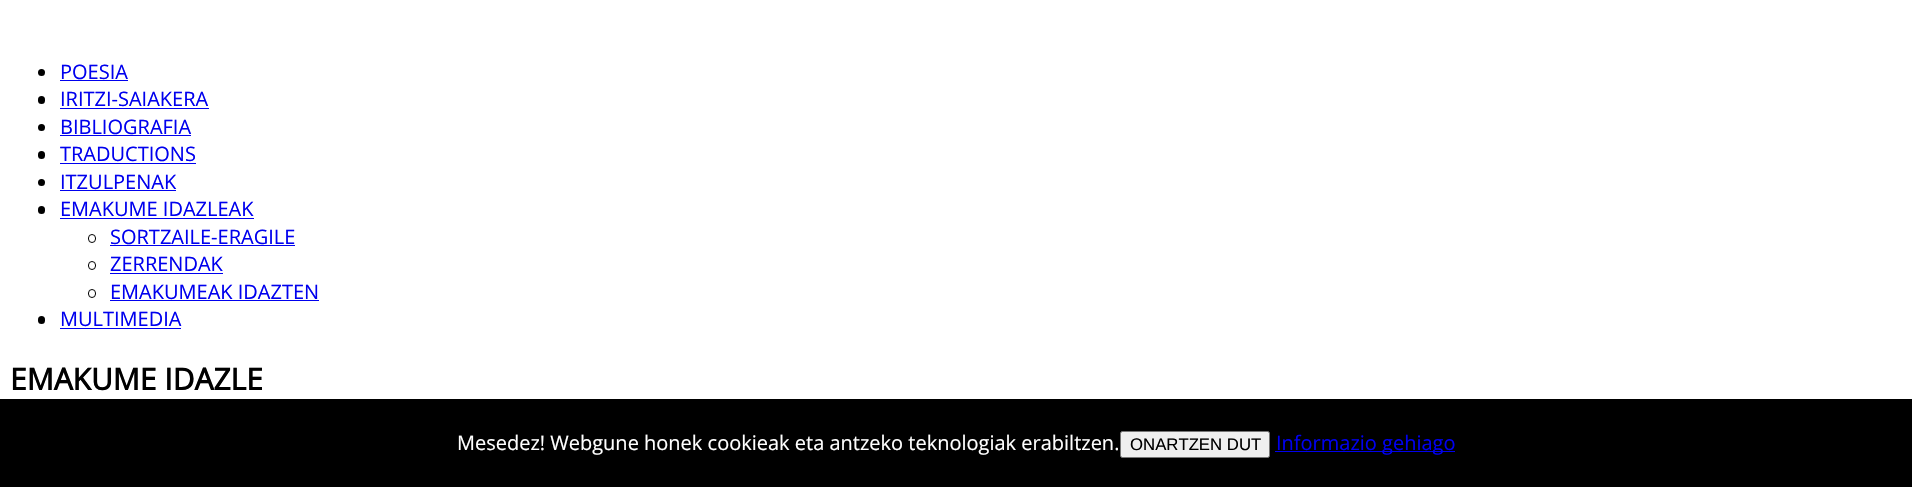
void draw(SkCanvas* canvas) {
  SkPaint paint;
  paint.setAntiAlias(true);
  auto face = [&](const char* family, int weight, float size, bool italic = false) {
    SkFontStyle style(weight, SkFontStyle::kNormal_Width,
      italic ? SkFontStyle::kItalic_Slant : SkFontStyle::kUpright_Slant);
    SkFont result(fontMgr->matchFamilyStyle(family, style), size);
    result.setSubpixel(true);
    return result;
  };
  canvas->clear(0xffffffff);
  paint.setColor(0xff000000);
  canvas->drawCircle(41.5f, 72.5f, 3.5f, paint);
  paint.setColor(0xff0000ee);
  canvas->drawRect(SkRect::MakeXYWH(60, 80, 68, 1), paint);
  paint.setColor(0xff000000);
  canvas->drawRoundRect(SkRect::MakeXYWH(38, 96, 7, 8), 3.5f, 3.5f, paint);
  paint.setColor(0xff0000ee);
  canvas->drawRect(SkRect::MakeXYWH(60, 108, 149, 1), paint);
  paint.setColor(0xff000000);
  canvas->drawCircle(41.5f, 127.5f, 3.5f, paint);
  paint.setColor(0xff0000ee);
  canvas->drawRect(SkRect::MakeXYWH(60, 135, 131, 1), paint);
  paint.setColor(0xff000000);
  canvas->drawRoundRect(SkRect::MakeXYWH(38, 151, 7, 8), 3.5f, 3.5f, paint);
  paint.setColor(0xff0000ee);
  canvas->drawRect(SkRect::MakeXYWH(60, 163, 136, 1), paint);
  paint.setColor(0xff000000);
  canvas->drawCircle(41.5f, 182.5f, 3.5f, paint);
  paint.setColor(0xff0000ee);
  canvas->drawRect(SkRect::MakeXYWH(60, 190, 116, 1), paint);
  paint.setColor(0xff000000);
  canvas->drawRoundRect(SkRect::MakeXYWH(38, 206, 7, 8), 3.5f, 3.5f, paint);
  paint.setColor(0xff0000ee);
  canvas->drawRect(SkRect::MakeXYWH(60, 218, 194, 1), paint);
  paint.setStroke(true);
  paint.setStrokeWidth(1);
  paint.setColor(0xff000000);
  canvas->drawRoundRect(SkRect::MakeXYWH(88.5f, 234.5f, 7, 8), 3.5f, 3.5f, paint);
  paint.setStroke(false);
  paint.setColor(0xff0000ee);
  canvas->drawRect(SkRect::MakeXYWH(110, 245, 185, 1), paint);
  paint.setStroke(true);
  paint.setColor(0xff000000);
  canvas->drawRoundRect(SkRect::MakeXYWH(88.5f, 261.5f, 7, 8), 3.5f, 3.5f, paint);
  paint.setStroke(false);
  paint.setColor(0xff0000ee);
  canvas->drawRect(SkRect::MakeXYWH(110, 273, 113, 1), paint);
  paint.setStroke(true);
  paint.setColor(0xff000000);
  canvas->drawRoundRect(SkRect::MakeXYWH(88.5f, 289.5f, 7, 8), 3.5f, 3.5f, paint);
  paint.setStroke(false);
  paint.setColor(0xff0000ee);
  canvas->drawRect(SkRect::MakeXYWH(110, 300, 209, 1), paint);
  paint.setColor(0xff000000);
  canvas->drawRoundRect(SkRect::MakeXYWH(38, 316, 7, 8), 3.5f, 3.5f, paint);
  paint.setColor(0xff0000ee);
  canvas->drawRect(SkRect::MakeXYWH(60, 328, 121, 1), paint);
  paint.setColor(0xff000000);
  canvas->drawRect(SkRect::MakeXYWH(0, 399, 1912, 88), paint);
  paint.setColor(0xffefefef);
  canvas->drawRoundRect(SkRect::MakeXYWH(1120.5f, 431.5f, 149, 26), 2, 2, paint);
  paint.setStroke(true);
  paint.setColor(0xff767676);
  canvas->drawRoundRect(SkRect::MakeXYWH(1120.5f, 431.5f, 149, 26), 2, 2, paint);
  paint.setStroke(false);
  paint.setColor(0xff0000ee);
  canvas->drawRect(SkRect::MakeXYWH(1275, 451, 180, 1), paint);
  auto f0 = face("Open Sans", 400, 20);
  {
    const struct { const char* s; float x, y; } items[] = {
      {"POESIA", 60, 79},
      {"IRITZI-SAIAKERA", 60, 106},
      {"BIBLIOGRAFIA", 60, 134},
      {"TRADUCTIONS", 60, 161},
      {"ITZULPENAK", 60, 189},
      {"EMAKUME IDAZLEAK", 60, 216},
      {"SORTZAILE-ERAGILE", 110, 244},
      {"ZERRENDAK", 110, 271},
      {"EMAKUMEAK IDAZTEN", 110, 299},
      {"MULTIMEDIA", 60, 326},
    };
    for (auto [s, x, y] : items) {
      canvas->drawString(s, x, y, f0, paint);
    }
  }
  auto f1 = face("Open Sans", 700, 30);
  paint.setColor(0xff000000);
  canvas->drawString("EMAKUME IDAZLE", 10, 390, f1, paint);
  paint.setColor(0xffffffff);
  canvas->drawString("Mesedez! Webgune honek cookieak eta antzeko teknologiak erabiltzen.", 457, 450, f0, paint);
  auto f2 = face("Liberation Sans", 400, 16.75f);
  paint.setColor(0xff000000);
  canvas->drawString("ONARTZEN DUT", 1130, 450, f2, paint);
  paint.setColor(0xff0000ee);
  canvas->drawString("Informazio gehiago", 1276, 450, f0, paint);
}
